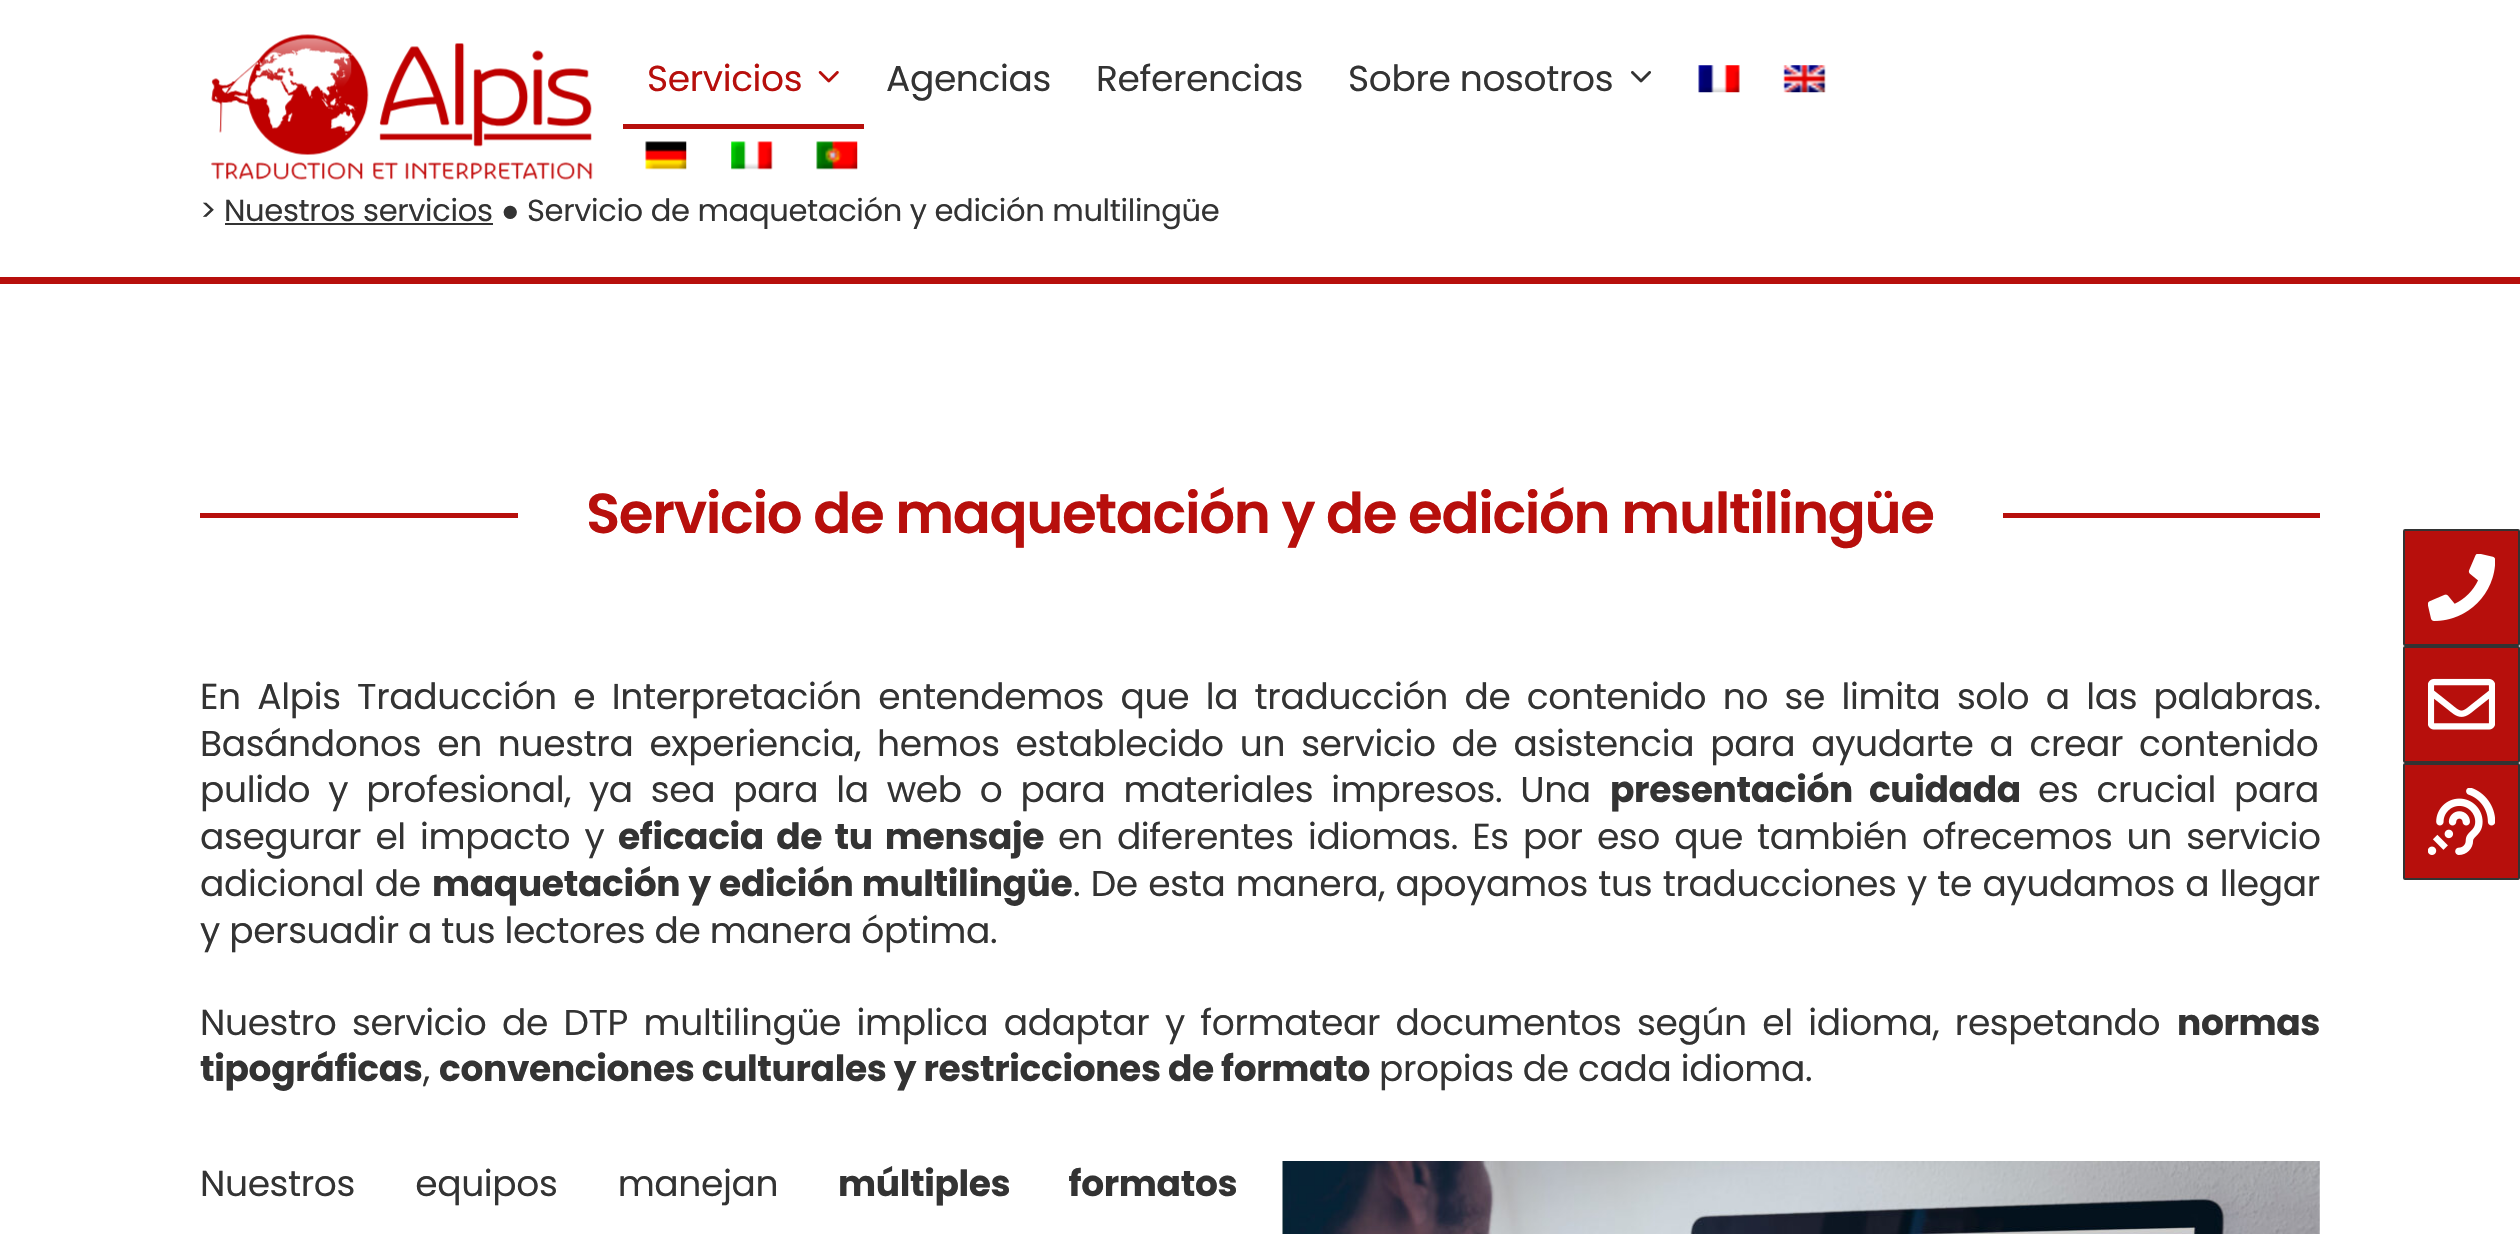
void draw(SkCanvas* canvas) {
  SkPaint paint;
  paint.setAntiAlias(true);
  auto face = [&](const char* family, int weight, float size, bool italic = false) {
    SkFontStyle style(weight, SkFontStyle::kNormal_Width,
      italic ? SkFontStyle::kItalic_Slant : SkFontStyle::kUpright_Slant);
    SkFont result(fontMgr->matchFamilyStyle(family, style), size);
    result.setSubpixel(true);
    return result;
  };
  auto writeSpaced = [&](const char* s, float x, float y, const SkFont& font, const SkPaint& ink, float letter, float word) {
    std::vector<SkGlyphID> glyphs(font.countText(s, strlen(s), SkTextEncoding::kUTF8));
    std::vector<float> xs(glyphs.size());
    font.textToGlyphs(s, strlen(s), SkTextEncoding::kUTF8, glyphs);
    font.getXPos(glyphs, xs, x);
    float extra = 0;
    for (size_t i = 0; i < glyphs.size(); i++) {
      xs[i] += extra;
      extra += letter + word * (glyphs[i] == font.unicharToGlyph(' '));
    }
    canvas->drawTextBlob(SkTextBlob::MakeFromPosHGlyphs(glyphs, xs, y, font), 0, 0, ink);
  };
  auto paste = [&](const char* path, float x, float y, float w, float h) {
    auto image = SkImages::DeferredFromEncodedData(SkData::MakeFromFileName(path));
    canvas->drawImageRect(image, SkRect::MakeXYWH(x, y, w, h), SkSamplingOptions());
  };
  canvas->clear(0xffffffff);
  paint.setColor(0xffb70f0c);
  canvas->drawRect(SkRect::MakeXYWH(0, 277, 2520, 7), paint);
  paste("img/1.png", 211, 34, 382, 146);
  paste("img/2.png", 818, 71, 21, 12);
  canvas->drawRect(SkRect::MakeXYWH(623, 124, 241, 5), paint);
  paste("img/3.png", 1631, 71, 20, 12);
  paste("img/4.png", 1698, 65, 42, 28);
  paste("img/5.png", 1783, 65, 43, 28);
  paste("img/6.png", 645, 141, 42, 29);
  paste("img/7.png", 731, 141, 42, 29);
  paste("img/8.png", 816, 141, 42, 29);
  {
    const struct { float x, y, w, h; SkColor color; } items[] = {
      {225, 223, 268, 2, 0xff333333},
      {200, 513, 318, 5, 0xffb70f0c},
      {2003, 513, 317, 5, 0xffb70f0c},
    };
    for (auto [x, y, w, h, color] : items) {
      paint.setColor(color);
      canvas->drawRect(SkRect::MakeXYWH(x, y, w, h), paint);
    }
  }
  paste("img/9.png", 1282, 1161, 1038, 73);
  canvas->drawRoundRect(SkRect::MakeXYWH(2404, 530, 115, 115), 1, 1, paint);
  paint.setStroke(true);
  paint.setStrokeWidth(2);
  paint.setColor(0xff333333);
  canvas->drawRoundRect(SkRect::MakeXYWH(2404, 530, 115, 115), 1, 1, paint);
  paste("img/10.png", 2428, 554, 67, 67);
  paint.setStroke(false);
  paint.setColor(0xffb70f0c);
  canvas->drawRoundRect(SkRect::MakeXYWH(2404, 647, 115, 115), 1, 1, paint);
  paint.setStroke(true);
  paint.setColor(0xff333333);
  canvas->drawRoundRect(SkRect::MakeXYWH(2404, 647, 115, 115), 1, 1, paint);
  paste("img/11.png", 2428, 678, 67, 52);
  paint.setStroke(false);
  paint.setColor(0xffb70f0c);
  canvas->drawRoundRect(SkRect::MakeXYWH(2404, 764, 115, 115), 1, 1, paint);
  paint.setStroke(true);
  paint.setColor(0xff333333);
  canvas->drawRoundRect(SkRect::MakeXYWH(2404, 764, 115, 115), 1, 1, paint);
  paste("img/12.png", 2428, 788, 67, 67);
  auto f0 = face("Poppins", 400, 36);
  paint.setStroke(false);
  paint.setColor(0xffb70f0c);
  writeSpaced("Servicios", 647, 91, f0, paint, -0.36f, 0);
  paint.setColor(0xff333333);
  {
    const struct { const char* s; float x, y; } items[] = {
      {"Agencias", 886, 91},
      {"Referencias", 1096, 91},
      {"Sobre nosotros", 1348, 91},
    };
    for (auto [s, x, y] : items) {
      writeSpaced(s, x, y, f0, paint, -0.36f, 0);
    }
  }
  auto f1 = face("Poppins", 400, 30.6f);
  writeSpaced("> Nuestros servicios", 200, 221, f1, paint, -0.36f, 0);
  auto f2 = face("Liberation Serif", 400, 30.6f);
  writeSpaced("●", 501, 221, f2, paint, -0.36f, 0);
  writeSpaced("Servicio de maquetación y edición multilingüe", 527, 221, f1, paint, -0.36f, 0);
  auto f3 = face("Poppins", 600, 56.25f);
  paint.setColor(0xffb70f0c);
  writeSpaced("Servicio de maquetación y de edición multilingüe", 586, 533, f3, paint, -1.4f, 0);
  paint.setColor(0xff333333);
  writeSpaced("En Alpis Traducción e Interpretación entendemos que la traducción de contenido no se limita solo a las palabras.", 200, 709, f0, paint, -0.36f, 7.25f);
  writeSpaced("Basándonos en nuestra experiencia, hemos establecido un servicio de asistencia para ayudarte a crear contenido", 200, 756, f0, paint, -0.36f, 6.75f);
  writeSpaced("pulido y profesional, ya sea para la web o para materiales impresos. Una", 200, 802, f0, paint, -0.36f, 8.75f);
  auto f4 = face("Poppins", 700, 36);
  writeSpaced("presentación cuidada", 1610, 802, f4, paint, -0.36f, 8.75f);
  writeSpaced("es crucial para", 2038, 802, f0, paint, -0.36f, 8.75f);
  writeSpaced("asegurar el impacto y", 200, 849, f0, paint, -0.36f, 5);
  writeSpaced("eficacia de tu mensaje", 618, 849, f4, paint, -0.36f, 5);
  writeSpaced("en diferentes idiomas. Es por eso que también ofrecemos un servicio", 1058, 849, f0, paint, -0.36f, 5);
  writeSpaced("adicional de", 200, 896, f0, paint, -0.36f, 1.25f);
  writeSpaced("maquetación y edición multilingüe", 432, 896, f4, paint, -0.36f, 1);
  writeSpaced(". De esta manera, apoyamos tus traducciones y te ayudamos a llegar", 1073, 896, f0, paint, -0.36f, 1.25f);
  writeSpaced("y persuadir a tus lectores de manera óptima.", 200, 943, f0, paint, -0.36f, 0);
  writeSpaced("Nuestro servicio de DTP multilingüe implica adaptar y formatear documentos según el idioma, respetando", 200, 1035, f0, paint, -0.36f, 6.25f);
  writeSpaced("normas", 2177, 1035, f4, paint, -0.36f, 0);
  writeSpaced("tipográficas", 200, 1081, f4, paint, -0.36f, 0);
  writeSpaced(",", 423, 1081, f0, paint, -0.36f, 0);
  writeSpaced("convenciones culturales y restricciones de formato", 439, 1081, f4, paint, -0.36f, 0);
  writeSpaced("propias de cada idioma.", 1379, 1081, f0, paint, -0.36f, 0);
  writeSpaced("Nuestros equipos manejan", 200, 1196, f0, paint, -0.36f, 51);
  writeSpaced("múltiples formatos", 838, 1196, f4, paint, -0.36f, 51);
}
